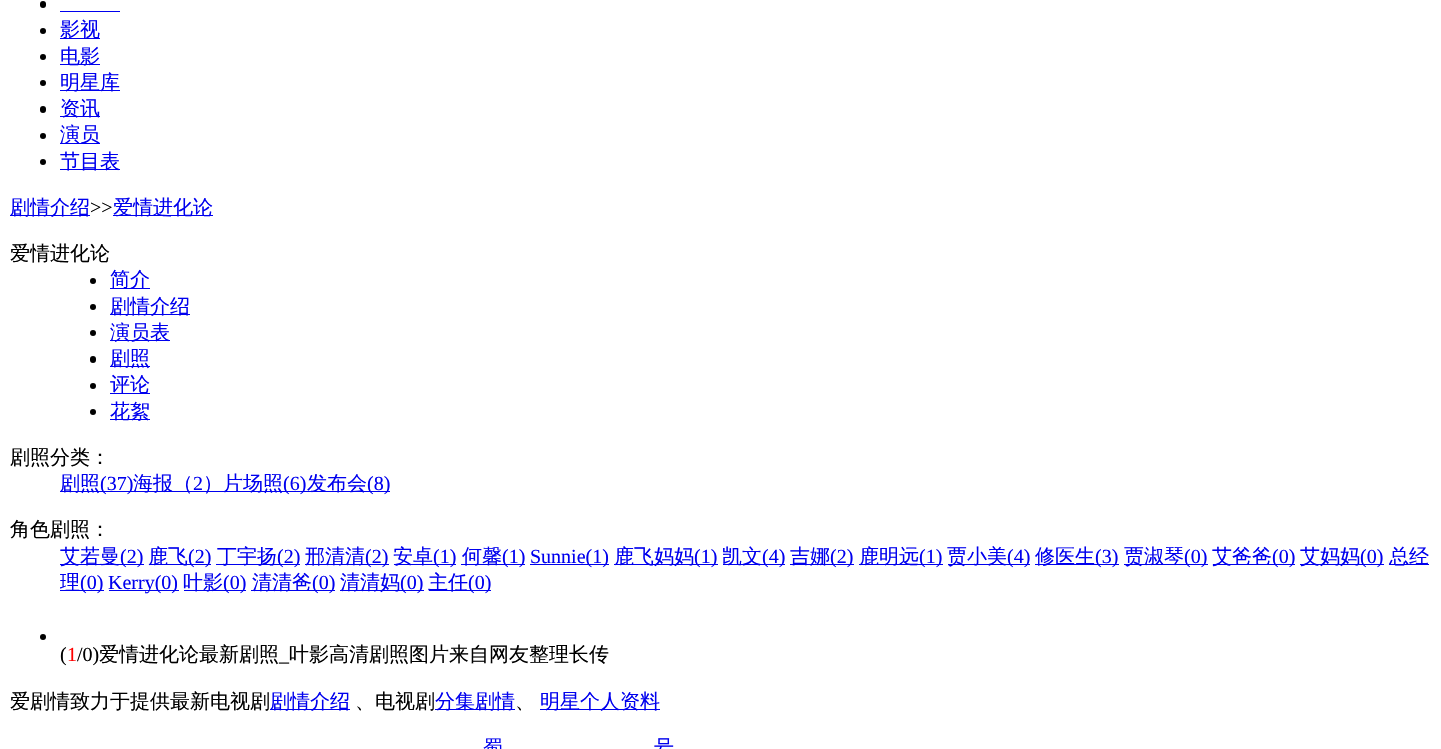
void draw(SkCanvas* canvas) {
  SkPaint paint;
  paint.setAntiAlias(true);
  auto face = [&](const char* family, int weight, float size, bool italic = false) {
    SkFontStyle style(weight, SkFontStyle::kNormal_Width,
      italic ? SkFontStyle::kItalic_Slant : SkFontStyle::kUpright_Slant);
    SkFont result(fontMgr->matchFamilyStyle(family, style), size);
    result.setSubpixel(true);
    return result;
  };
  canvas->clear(0xffffffff);
  paint.setColor(0xff000000);
  canvas->drawRoundRect(SkRect::MakeXYWH(40, 1, 6, 7), 3, 3, paint);
  paint.setColor(0xff0000ee);
  canvas->drawRect(SkRect::MakeXYWH(60, 11, 60, 1), paint);
  paint.setColor(0xff000000);
  canvas->drawCircle(43, 31, 3, paint);
  paint.setColor(0xff0000ee);
  canvas->drawRect(SkRect::MakeXYWH(60, 38, 40, 1), paint);
  paint.setColor(0xff000000);
  canvas->drawCircle(43, 57, 3, paint);
  paint.setColor(0xff0000ee);
  canvas->drawRect(SkRect::MakeXYWH(60, 64, 40, 1), paint);
  paint.setColor(0xff000000);
  canvas->drawCircle(43, 83, 3, paint);
  paint.setColor(0xff0000ee);
  canvas->drawRect(SkRect::MakeXYWH(60, 90, 60, 1), paint);
  paint.setColor(0xff000000);
  canvas->drawRoundRect(SkRect::MakeXYWH(40, 106, 6, 7), 3, 3, paint);
  paint.setColor(0xff0000ee);
  canvas->drawRect(SkRect::MakeXYWH(60, 116, 40, 1), paint);
  paint.setColor(0xff000000);
  canvas->drawCircle(43, 136, 3, paint);
  paint.setColor(0xff0000ee);
  canvas->drawRect(SkRect::MakeXYWH(60, 143, 40, 1), paint);
  paint.setColor(0xff000000);
  canvas->drawCircle(43, 162, 3, paint);
  {
    const struct { float x, y, w, h; SkColor color; } items[] = {
      {60, 169, 60, 1, 0xff0000ee},
      {10, 215, 80, 1, 0xff0000ee},
      {113, 215, 100, 1, 0xff0000ee},
    };
    for (auto [x, y, w, h, color] : items) {
      paint.setColor(color);
      canvas->drawRect(SkRect::MakeXYWH(x, y, w, h), paint);
    }
  }
  paint.setColor(0xff000000);
  canvas->drawCircle(93, 281, 3, paint);
  paint.setColor(0xff0000ee);
  canvas->drawRect(SkRect::MakeXYWH(110, 288, 40, 1), paint);
  paint.setColor(0xff000000);
  canvas->drawCircle(93, 307, 3, paint);
  paint.setColor(0xff0000ee);
  canvas->drawRect(SkRect::MakeXYWH(110, 314, 80, 1), paint);
  paint.setColor(0xff000000);
  canvas->drawCircle(93, 333, 3, paint);
  paint.setColor(0xff0000ee);
  canvas->drawRect(SkRect::MakeXYWH(110, 340, 60, 1), paint);
  paint.setColor(0xff000000);
  canvas->drawRoundRect(SkRect::MakeXYWH(90, 356, 6, 7), 3, 3, paint);
  paint.setColor(0xff0000ee);
  canvas->drawRect(SkRect::MakeXYWH(110, 366, 40, 1), paint);
  paint.setColor(0xff000000);
  canvas->drawCircle(93, 386, 3, paint);
  paint.setColor(0xff0000ee);
  canvas->drawRect(SkRect::MakeXYWH(110, 393, 40, 1), paint);
  paint.setColor(0xff000000);
  canvas->drawCircle(93, 412, 3, paint);
  {
    const struct { float x, y, w, h; SkColor color; } items[] = {
      {110, 419, 40, 1, 0xff0000ee},
      {60, 491, 330, 1, 0xff0000ee},
      {60, 564, 84, 1, 0xff0000ee},
      {149, 564, 62, 1, 0xff0000ee},
      {216, 564, 84, 1, 0xff0000ee},
      {305, 564, 84, 1, 0xff0000ee},
      {394, 564, 62, 1, 0xff0000ee},
      {461, 564, 64, 1, 0xff0000ee},
      {530, 564, 79, 1, 0xff0000ee},
      {614, 564, 104, 1, 0xff0000ee},
      {723, 564, 62, 1, 0xff0000ee},
      {790, 564, 64, 1, 0xff0000ee},
      {859, 564, 84, 1, 0xff0000ee},
      {948, 564, 82, 1, 0xff0000ee},
      {1035, 564, 84, 1, 0xff0000ee},
      {1124, 564, 84, 1, 0xff0000ee},
      {1213, 564, 82, 1, 0xff0000ee},
      {1300, 564, 84, 1, 0xff0000ee},
      {1389, 564, 40, 1, 0xff0000ee},
      {60, 590, 44, 1, 0xff0000ee},
      {109, 590, 70, 1, 0xff0000ee},
      {184, 590, 62, 1, 0xff0000ee},
      {251, 590, 84, 1, 0xff0000ee},
      {340, 590, 84, 1, 0xff0000ee},
      {429, 590, 62, 1, 0xff0000ee},
    };
    for (auto [x, y, w, h, color] : items) {
      paint.setColor(color);
      canvas->drawRect(SkRect::MakeXYWH(x, y, w, h), paint);
    }
  }
  paint.setColor(0xff000000);
  canvas->drawCircle(43, 637, 3, paint);
  {
    const struct { float x, y, w, h; SkColor color; } items[] = {
      {270, 709, 80, 1, 0xff0000ee},
      {435, 709, 80, 1, 0xff0000ee},
      {540, 709, 120, 1, 0xff0000ee},
    };
    for (auto [x, y, w, h, color] : items) {
      paint.setColor(color);
      canvas->drawRect(SkRect::MakeXYWH(x, y, w, h), paint);
    }
  }
  auto f0 = face("WenQuanYi Zen Hei", 500, 20);
  {
    const struct { const char* s; float x, y; } items[] = {
      {"影视", 60, 36},
      {"电影", 60, 63},
      {"明星库", 60, 89},
      {"资讯", 60, 115},
      {"演员", 60, 141},
      {"节目表", 60, 168},
      {"剧情介绍", 10, 214},
    };
    for (auto [s, x, y] : items) {
      canvas->drawString(s, x, y, f0, paint);
    }
  }
  auto f1 = face("Liberation Serif", 400, 20);
  paint.setColor(0xff000000);
  canvas->drawString(">>", 90, 214, f1, paint);
  paint.setColor(0xff0000ee);
  canvas->drawString("爱情进化论", 113, 214, f0, paint);
  paint.setColor(0xff000000);
  canvas->drawString("爱情进化论", 10, 260, f0, paint);
  paint.setColor(0xff0000ee);
  {
    const struct { const char* s; float x, y; } items[] = {
      {"简介", 110, 286},
      {"剧情介绍", 110, 313},
      {"演员表", 110, 339},
      {"剧照", 110, 365},
      {"评论", 110, 391},
      {"花絮", 110, 418},
    };
    for (auto [s, x, y] : items) {
      canvas->drawString(s, x, y, f0, paint);
    }
  }
  paint.setColor(0xff000000);
  canvas->drawString("剧照分类：", 10, 464, f0, paint);
  paint.setColor(0xff0000ee);
  canvas->drawString("剧照", 60, 490, f0, paint);
  canvas->drawString("(37)", 100, 490, f1, paint);
  canvas->drawString("海报（", 133, 490, f0, paint);
  canvas->drawString("2", 193, 490, f1, paint);
  canvas->drawString("）片场照", 203, 490, f0, paint);
  canvas->drawString("(6)", 283, 490, f1, paint);
  canvas->drawString("发布会", 307, 490, f0, paint);
  canvas->drawString("(8)", 367, 490, f1, paint);
  paint.setColor(0xff000000);
  canvas->drawString("角色剧照：", 10, 536, f0, paint);
  paint.setColor(0xff0000ee);
  canvas->drawString("艾若曼", 60, 563, f0, paint);
  canvas->drawString("(2)", 120, 563, f1, paint);
  canvas->drawString("鹿飞", 148, 563, f0, paint);
  canvas->drawString("(2)", 188, 563, f1, paint);
  canvas->drawString("丁宇扬", 217, 563, f0, paint);
  canvas->drawString("(2)", 277, 563, f1, paint);
  canvas->drawString("邢清清", 305, 563, f0, paint);
  canvas->drawString("(2)", 365, 563, f1, paint);
  canvas->drawString("安卓", 393, 563, f0, paint);
  canvas->drawString("(1)", 433, 563, f1, paint);
  canvas->drawString("何馨", 462, 563, f0, paint);
  canvas->drawString("(1)", 502, 563, f1, paint);
  canvas->drawString("Sunnie(1)", 530, 563, f1, paint);
  canvas->drawString("鹿飞妈妈", 614, 563, f0, paint);
  canvas->drawString("(1)", 694, 563, f1, paint);
  canvas->drawString("凯文", 722, 563, f0, paint);
  canvas->drawString("(4)", 762, 563, f1, paint);
  canvas->drawString("吉娜", 790, 563, f0, paint);
  canvas->drawString("(2)", 830, 563, f1, paint);
  canvas->drawString("鹿明远", 859, 563, f0, paint);
  canvas->drawString("(1)", 919, 563, f1, paint);
  canvas->drawString("贾小美", 947, 563, f0, paint);
  canvas->drawString("(4)", 1007, 563, f1, paint);
  canvas->drawString("修医生", 1035, 563, f0, paint);
  canvas->drawString("(3)", 1095, 563, f1, paint);
  canvas->drawString("贾淑琴", 1124, 563, f0, paint);
  canvas->drawString("(0)", 1184, 563, f1, paint);
  canvas->drawString("艾爸爸", 1212, 563, f0, paint);
  canvas->drawString("(0)", 1272, 563, f1, paint);
  canvas->drawString("艾妈妈", 1300, 563, f0, paint);
  canvas->drawString("(0)", 1360, 563, f1, paint);
  canvas->drawString("总经", 1389, 563, f0, paint);
  canvas->drawString("理", 60, 589, f0, paint);
  canvas->drawString("(0)", 80, 589, f1, paint);
  canvas->drawString("Kerry(0)", 108, 589, f1, paint);
  canvas->drawString("叶影", 183, 589, f0, paint);
  canvas->drawString("(0)", 223, 589, f1, paint);
  canvas->drawString("清清爸", 252, 589, f0, paint);
  canvas->drawString("(0)", 312, 589, f1, paint);
  canvas->drawString("清清妈", 340, 589, f0, paint);
  canvas->drawString("(0)", 400, 589, f1, paint);
  canvas->drawString("主任", 428, 589, f0, paint);
  canvas->drawString("(0)", 468, 589, f1, paint);
  paint.setColor(0xff000000);
  canvas->drawString("(", 60, 661, f1, paint);
  paint.setColor(0xffff0000);
  canvas->drawString("1", 67, 661, f1, paint);
  paint.setColor(0xff000000);
  canvas->drawString("/0)", 77, 661, f1, paint);
  canvas->drawString("爱情进化论最新剧照", 99, 661, f0, paint);
  canvas->drawString("_", 279, 661, f1, paint);
  canvas->drawString("叶影高清剧照图片来自网友整理长传", 289, 661, f0, paint);
  canvas->drawString("爱剧情致力于提供最新电视剧", 10, 708, f0, paint);
  paint.setColor(0xff0000ee);
  canvas->drawString("剧情介绍", 270, 708, f0, paint);
  paint.setColor(0xff000000);
  canvas->drawString("、电视剧", 355, 708, f0, paint);
  paint.setColor(0xff0000ee);
  canvas->drawString("分集剧情", 435, 708, f0, paint);
  paint.setColor(0xff000000);
  canvas->drawString("、", 515, 708, f0, paint);
  paint.setColor(0xff0000ee);
  {
    const struct { const char* s; float x, y; } items[] = {
      {"明星个人资料", 540, 708},
      {"蜀", 483, 754},
      {"号", 654, 754},
    };
    for (auto [s, x, y] : items) {
      canvas->drawString(s, x, y, f0, paint);
    }
  }
}
